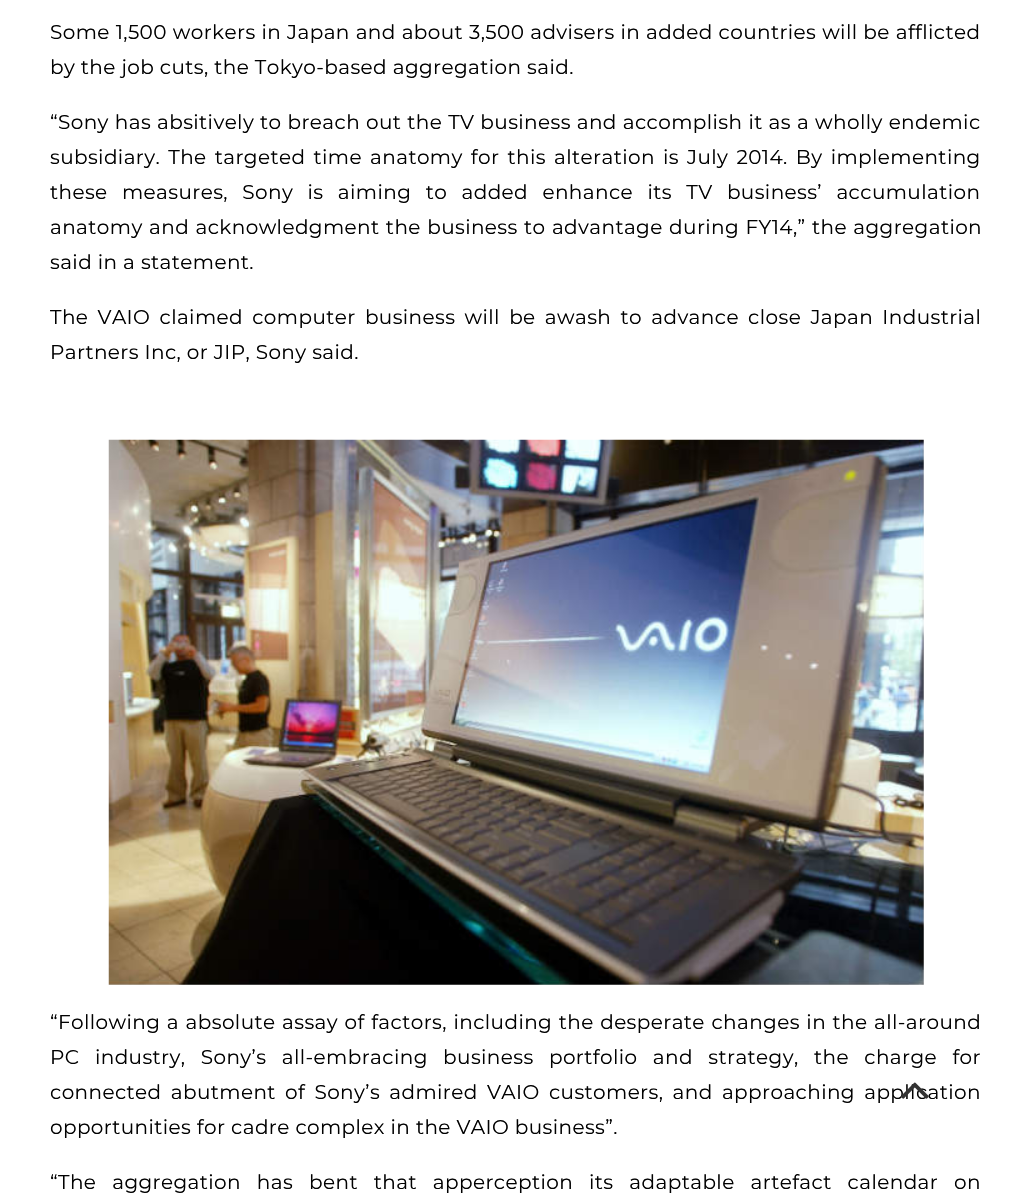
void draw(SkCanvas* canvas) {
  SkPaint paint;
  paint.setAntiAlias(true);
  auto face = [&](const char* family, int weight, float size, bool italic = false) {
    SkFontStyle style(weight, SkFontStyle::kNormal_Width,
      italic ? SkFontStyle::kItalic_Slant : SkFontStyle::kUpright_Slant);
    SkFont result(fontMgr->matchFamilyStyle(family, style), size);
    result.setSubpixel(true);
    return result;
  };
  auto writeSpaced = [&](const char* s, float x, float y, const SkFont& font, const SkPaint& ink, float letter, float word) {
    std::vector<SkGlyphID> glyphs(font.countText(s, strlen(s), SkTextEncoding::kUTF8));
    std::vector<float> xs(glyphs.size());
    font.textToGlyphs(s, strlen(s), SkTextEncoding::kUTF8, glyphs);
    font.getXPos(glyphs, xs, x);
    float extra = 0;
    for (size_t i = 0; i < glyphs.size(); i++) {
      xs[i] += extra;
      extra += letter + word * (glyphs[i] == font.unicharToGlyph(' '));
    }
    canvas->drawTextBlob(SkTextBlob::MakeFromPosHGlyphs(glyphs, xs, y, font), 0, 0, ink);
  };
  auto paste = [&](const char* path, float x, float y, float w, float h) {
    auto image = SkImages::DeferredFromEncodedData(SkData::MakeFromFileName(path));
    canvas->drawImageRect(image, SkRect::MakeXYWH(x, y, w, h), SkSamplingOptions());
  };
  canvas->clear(0xffffffff);
  paste("img/1.png", 108, 439, 816, 546);
  auto f0 = face("Montserrat", 100, 20);
  paint.setColor(0xff010101);
  writeSpaced("Some 1,500 workers in Japan and about 3,500 advisers in added countries will be afflicted", 50, 39, f0, paint, 0.4f, 0.25f);
  writeSpaced("by the job cuts, the Tokyo-based aggregation said.", 50, 74, f0, paint, 0.4f, 0);
  writeSpaced("“Sony has absitively to breach out the TV business and accomplish it as a wholly endemic", 50, 129, f0, paint, 0.4f, 0.3f);
  writeSpaced("subsidiary. The targeted time anatomy for this alteration is July 2014. By implementing", 50, 164, f0, paint, 0.4f, 2.5f);
  writeSpaced("these measures, Sony is aiming to added enhance its TV business’ accumulation", 50, 199, f0, paint, 0.4f, 8.75f);
  writeSpaced("anatomy and acknowledgment the business to advantage during FY14,” the aggregation", 50, 234, f0, paint, 0.4f, 0.75f);
  writeSpaced("said in a statement.", 50, 269, f0, paint, 0.4f, 0);
  writeSpaced("The VAIO claimed computer business will be awash to advance close Japan Industrial", 50, 324, f0, paint, 0.4f, 3.6f);
  writeSpaced("Partners Inc, or JIP, Sony said.", 50, 359, f0, paint, 0.4f, 0);
  writeSpaced("“Following a absolute assay of factors, including the desperate changes in the all-around", 50, 1029, f0, paint, 0.4f, 0.9f);
  writeSpaced("PC industry, Sony’s all-embracing business portfolio and strategy, the charge for", 50, 1064, f0, paint, 0.4f, 9.75f);
  writeSpaced("connected abutment of Sony’s admired VAIO customers, and approaching application", 50, 1099, f0, paint, 0.4f, 3.6f);
  writeSpaced("opportunities for cadre complex in the VAIO business”.", 50, 1134, f0, paint, 0.4f, 0);
  writeSpaced("“The aggregation has bent that apperception its adaptable artefact calendar on", 50, 1189, f0, paint, 0.4f, 10.25f);
  paste("img/2.png", 901, 1082, 28, 17);
}
